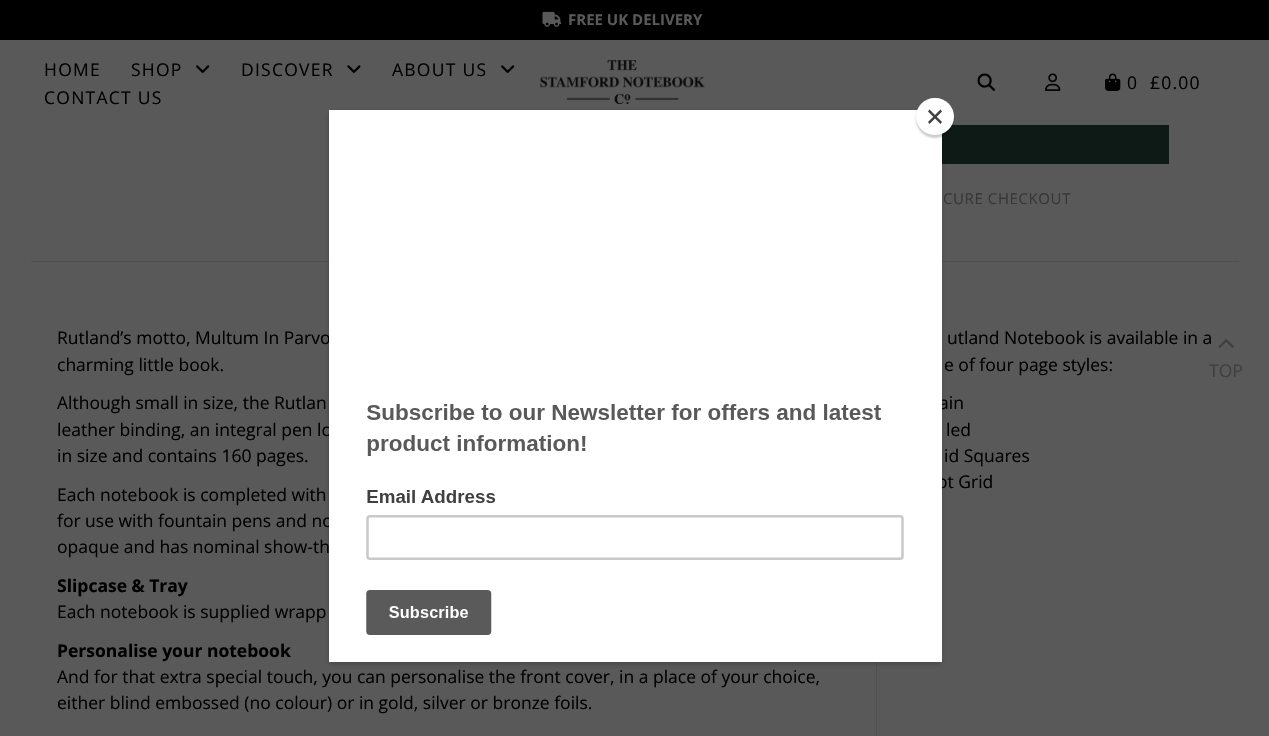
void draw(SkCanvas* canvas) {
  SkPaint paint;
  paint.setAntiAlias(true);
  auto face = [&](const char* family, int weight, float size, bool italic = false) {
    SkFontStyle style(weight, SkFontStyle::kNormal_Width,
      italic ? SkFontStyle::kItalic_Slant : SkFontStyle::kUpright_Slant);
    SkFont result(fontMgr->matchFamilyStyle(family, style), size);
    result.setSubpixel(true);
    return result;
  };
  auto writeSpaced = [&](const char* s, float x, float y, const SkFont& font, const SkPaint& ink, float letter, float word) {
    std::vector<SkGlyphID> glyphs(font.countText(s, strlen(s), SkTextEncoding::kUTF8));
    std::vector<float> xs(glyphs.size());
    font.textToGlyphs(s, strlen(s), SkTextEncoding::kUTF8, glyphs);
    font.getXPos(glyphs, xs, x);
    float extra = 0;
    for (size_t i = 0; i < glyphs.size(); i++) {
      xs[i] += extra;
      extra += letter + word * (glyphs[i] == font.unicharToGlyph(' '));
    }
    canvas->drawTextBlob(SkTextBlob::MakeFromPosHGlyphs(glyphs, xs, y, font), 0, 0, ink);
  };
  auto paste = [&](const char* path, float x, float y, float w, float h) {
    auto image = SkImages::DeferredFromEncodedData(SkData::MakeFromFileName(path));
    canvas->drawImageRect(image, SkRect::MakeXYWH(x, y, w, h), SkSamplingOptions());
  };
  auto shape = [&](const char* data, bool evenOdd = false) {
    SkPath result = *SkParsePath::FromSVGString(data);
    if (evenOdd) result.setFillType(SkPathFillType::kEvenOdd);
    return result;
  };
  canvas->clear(0xff595959);
  paint.setColor(0xff000000);
  canvas->drawRect(SkRect::MakeXYWH(0, 0, 1269, 40), paint);
  paste("img/1.png", 542, 11, 20, 16);
  paste("img/2.png", 196, 65, 14, 8);
  paste("img/3.png", 347, 65, 14, 8);
  paste("img/2.png", 501, 65, 14, 8);
  paste("img/4.png", 539, 60, 166, 45);
  paste("img/5.png", 977, 73, 18, 18);
  paste("img/6.png", 1045, 73, 16, 18);
  paste("img/7.png", 1105, 73, 16, 18);
  {
    const struct { float x, y, w, h; SkColor color; } items[] = {
      {942, 125, 227, 39, 0xff0d1a16},
      {31, 261, 1208, 1, 0xff505050},
      {876, 662, 1, 74, 0xff505050},
    };
    for (auto [x, y, w, h, color] : items) {
      paint.setColor(color);
      canvas->drawRect(SkRect::MakeXYWH(x, y, w, h), paint);
    }
  }
  paint.setColor(0x33000000);
  paint.setMaskFilter(SkMaskFilter::MakeBlur(kNormal_SkBlurStyle, 2.5f));
  canvas->drawRect(SkRect::MakeXYWH(329, 113, 612, 551), paint);
  paint.setMaskFilter(nullptr);
  paste("img/9.png", 1218, 339, 16, 9);
  auto f0 = face("Open Sans", 700, 15);
  paint.setColor(0xff595959);
  canvas->drawString("FREE UK DELIVERY", 568, 25, f0, paint);
  auto f1 = face("Open Sans", 400, 17.5f);
  paint.setColor(0xff000000);
  {
    const struct { const char* s; float x, y; } items[] = {
      {"HOME", 44, 76},
      {"SHOP", 131, 76},
      {"DISCOVER", 241, 76},
      {"ABOUT US", 392, 76},
      {"CONTACT US", 44, 104},
      {"0", 1127, 89},
      {"£0.00", 1150, 89},
    };
    for (auto [s, x, y] : items) {
      writeSpaced(s, x, y, f1, paint, 1.25f, 0);
    }
  }
  auto f2 = face("Open Sans", 400, 15);
  paint.setColor(0xff363636);
  writeSpaced("CURE CHECKOUT", 943, 204, f2, paint, 0.6f, 0);
  paint.setColor(0xff000000);
  {
    const struct { const char* s; float x, y; } items[] = {
      {"Rutland’s motto, Multum In Parvo", 57, 344},
      {"charming little book.", 57, 371},
      {"Although small in size, the Rutlan", 57, 409},
      {"leather binding, an integral pen lo", 57, 436},
      {"in size and contains 160 pages.", 57, 462},
      {"Each notebook is completed with", 57, 501},
      {"for use with fountain pens and no", 57, 527},
      {"opaque and has nominal show-th", 57, 553},
    };
    for (auto [s, x, y] : items) {
      canvas->drawString(s, x, y, f1, paint);
    }
  }
  auto f3 = face("Open Sans", 700, 17.5f);
  canvas->drawString("Slipcase & Tray", 57, 592, f3, paint);
  canvas->drawString("Each notebook is supplied wrapp", 57, 618, f1, paint);
  canvas->drawString("Personalise your notebook", 57, 657, f3, paint);
  {
    const struct { const char* s; float x, y; } items[] = {
      {"And for that extra special touch, you can personalise the front cover, in a place of your choice,", 57, 683},
      {"either blind embossed (no colour) or in gold, silver or bronze foils.", 57, 709},
      {"utland Notebook is available in a", 947, 344},
      {"e of four page styles:", 944, 371},
      {"ain", 939, 409},
      {"led", 946, 436},
      {"id Squares", 944, 462},
      {"ot Grid", 937, 488},
    };
    for (auto [s, x, y] : items) {
      canvas->drawString(s, x, y, f1, paint);
    }
  }
  paste("img/8.png", 329, 110, 613, 552);
  paint.setColor(0x33000000);
  paint.setMaskFilter(SkMaskFilter::MakeBlur(kNormal_SkBlurStyle, 1));
  canvas->drawRoundRect(SkRect::MakeXYWH(916, 100, 38, 38), 19, 19, paint);
  paint.setMaskFilter(nullptr);
  paint.setColor(0xffffffff);
  canvas->drawRoundRect(SkRect::MakeXYWH(916, 98, 38, 37), 18.5f, 18.5f, paint);
  paint.setColor(0xff414141);
  canvas->drawPath(shape("M940.5 109.5L942 111.5L929.5 124L928 122Z"), paint);
  canvas->drawPath(shape("M928 111.5L929.5 109.5L942 122L940.5 124Z"), paint);
  paint.setColor(0xff3f3f3f);
  canvas->drawString("TOP", 1209, 377, f1, paint);
}
